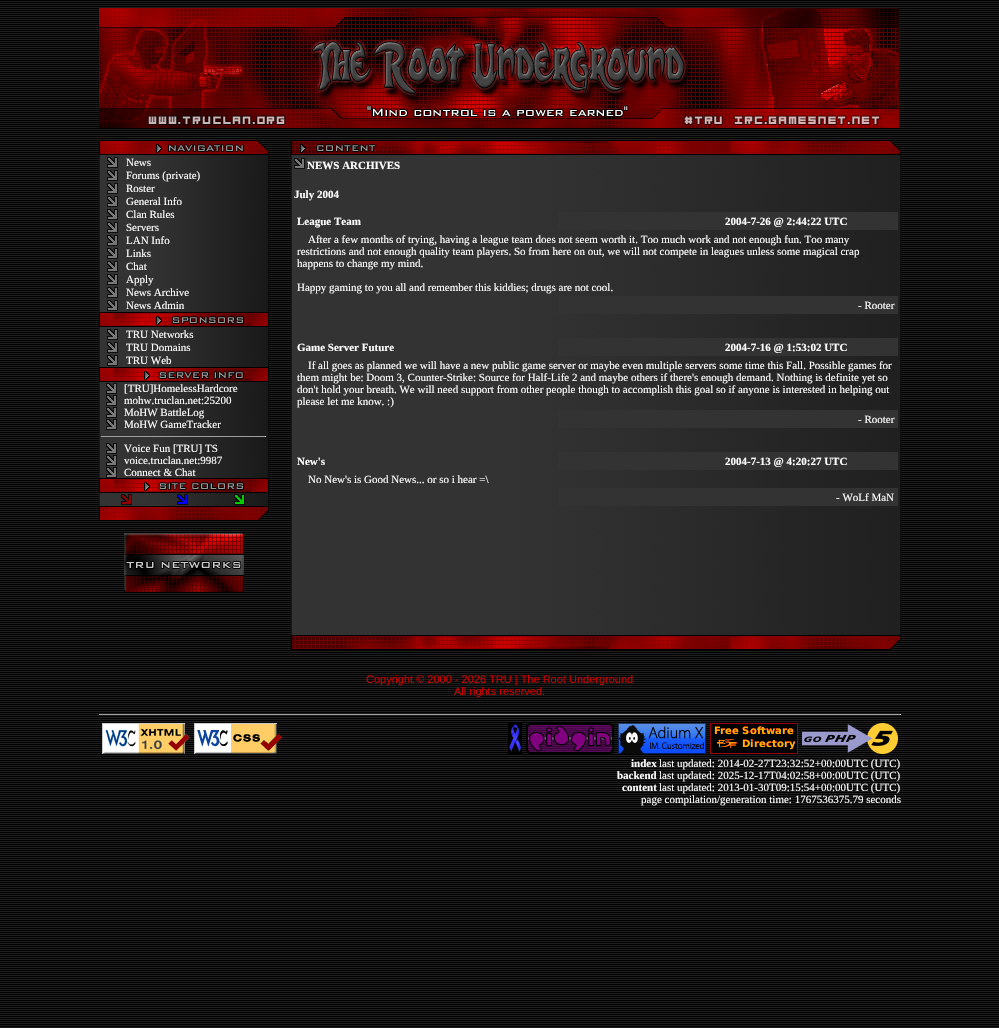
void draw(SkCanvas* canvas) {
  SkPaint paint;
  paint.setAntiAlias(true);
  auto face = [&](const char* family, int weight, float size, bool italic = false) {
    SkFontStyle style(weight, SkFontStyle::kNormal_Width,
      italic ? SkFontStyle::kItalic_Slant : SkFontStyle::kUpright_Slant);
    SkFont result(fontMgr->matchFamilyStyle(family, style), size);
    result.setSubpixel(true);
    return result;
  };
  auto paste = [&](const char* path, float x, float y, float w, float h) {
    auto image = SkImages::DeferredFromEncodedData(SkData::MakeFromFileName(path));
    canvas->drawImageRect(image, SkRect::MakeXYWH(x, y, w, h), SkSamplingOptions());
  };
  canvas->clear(0xffffffff);
  paste("img/1.png", 0, 0, 999, 1028);
  paste("img/2.png", 99, 8, 800, 120);
  paste("img/3.png", 99, 141, 170, 14);
  paste("img/4.png", 99, 155, 170, 157);
  paste("img/5.png", 107, 157, 11, 11);
  paste("img/5.png", 107, 170, 11, 11);
  paste("img/5.png", 107, 183, 11, 11);
  paste("img/5.png", 107, 196, 11, 11);
  paste("img/5.png", 107, 209, 11, 11);
  paste("img/5.png", 107, 222, 11, 11);
  paste("img/5.png", 107, 235, 11, 11);
  paste("img/5.png", 107, 248, 11, 11);
  paste("img/5.png", 107, 261, 11, 11);
  paste("img/5.png", 107, 274, 11, 11);
  paste("img/5.png", 107, 287, 11, 11);
  paste("img/5.png", 107, 300, 11, 11);
  paste("img/6.png", 99, 312, 170, 15);
  paste("img/7.png", 99, 327, 170, 40);
  paste("img/5.png", 107, 329, 11, 11);
  paste("img/5.png", 107, 342, 11, 11);
  paste("img/5.png", 107, 355, 11, 11);
  paste("img/8.png", 99, 367, 170, 15);
  paste("img/9.png", 99, 382, 170, 96);
  paste("img/5.png", 106, 383, 11, 11);
  paste("img/5.png", 106, 395, 11, 11);
  paste("img/5.png", 106, 407, 11, 11);
  paste("img/5.png", 106, 419, 11, 11);
  paint.setColor(0xff9f9f9f);
  canvas->drawRect(SkRect::MakeXYWH(101, 436, 165, 1), paint);
  paint.setColor(0xffeeeeee);
  canvas->drawRect(SkRect::MakeXYWH(265, 436, 1, 1), paint);
  paste("img/5.png", 106, 443, 11, 11);
  paste("img/5.png", 106, 455, 11, 11);
  paste("img/5.png", 106, 467, 11, 11);
  paste("img/10.png", 99, 478, 170, 15);
  paste("img/11.png", 99, 493, 170, 13);
  paste("img/12.png", 121, 494, 11, 11);
  paste("img/13.png", 177, 494, 11, 11);
  paste("img/14.png", 234, 494, 11, 11);
  paste("img/15.png", 99, 506, 170, 14);
  paste("img/16.png", 124, 533, 120, 59);
  paste("img/17.png", 291, 141, 610, 13);
  paste("img/18.png", 291, 155, 610, 480);
  paste("img/5.png", 294, 158, 11, 11);
  {
    const struct { float x, y, w, h; SkColor color; } items[] = {
      {558, 212, 340, 18, 0xff333333},
      {558, 296, 340, 18, 0xff333333},
      {558, 338, 340, 18, 0xff333333},
      {558, 410, 340, 18, 0xff333333},
      {558, 452, 340, 18, 0xff333333},
      {558, 488, 340, 18, 0xff333333},
    };
    for (auto [x, y, w, h, color] : items) {
      paint.setColor(color);
      canvas->drawRect(SkRect::MakeXYWH(x, y, w, h), paint);
    }
  }
  paste("img/19.png", 291, 635, 610, 15);
  paint.setColor(0xff9f9f9f);
  canvas->drawRect(SkRect::MakeXYWH(99, 714, 802, 1), paint);
  paint.setColor(0xffeeeeee);
  canvas->drawRect(SkRect::MakeXYWH(900, 714, 1, 1), paint);
  paste("img/20.png", 102, 723, 88, 31);
  paste("img/21.png", 194, 723, 88, 31);
  paste("img/22.png", 508, 723, 14, 31);
  paste("img/23.png", 526, 723, 88, 31);
  paste("img/24.png", 618, 723, 88, 31);
  paste("img/25.png", 710, 723, 88, 31);
  paste("img/26.png", 802, 723, 96, 31);
  auto f0 = face("Liberation Serif", 400, 11);
  paint.setColor(0xffffffff);
  {
    const struct { const char* s; float x, y; } items[] = {
      {"News", 126, 166},
      {"Forums (private)", 126, 179},
      {"Roster", 126, 192},
      {"General Info", 126, 205},
      {"Clan Rules", 126, 218},
      {"Servers", 126, 231},
      {"LAN Info", 126, 244},
      {"Links", 126, 257},
      {"Chat", 126, 270},
      {"Apply", 126, 283},
      {"News Archive", 126, 296},
      {"News Admin", 126, 309},
      {"TRU Networks", 126, 338},
      {"TRU Domains", 126, 351},
      {"TRU Web", 126, 364},
      {"[TRU]HomelessHardcore", 124, 392},
      {"mohw.truclan.net:25200", 124, 404},
      {"MoHW BattleLog", 124, 416},
      {"MoHW GameTracker", 124, 428},
      {"Voice Fun [TRU] TS", 124, 452},
      {"voice.truclan.net:9987", 124, 464},
      {"Connect & Chat", 124, 476},
    };
    for (auto [s, x, y] : items) {
      canvas->drawString(s, x, y, f0, paint);
    }
  }
  auto f1 = face("Liberation Serif", 700, 11);
  {
    const struct { const char* s; float x, y; } items[] = {
      {"NEWS ARCHIVES", 307, 169},
      {"July 2004", 294, 198},
      {"League Team", 297, 225},
      {"2004-7-26 @ 2:44:22 UTC", 725, 225},
    };
    for (auto [s, x, y] : items) {
      canvas->drawString(s, x, y, f1, paint);
    }
  }
  {
    const struct { const char* s; float x, y; } items[] = {
      {"After a few months of trying, having a league team does not seem worth it. Too much work and not enough fun. Too many", 308, 243},
      {"restrictions and not enough quality team players. So from here on out, we will not compete in leagues unless some magical crap", 297, 255},
      {"happens to change my mind.", 297, 267},
      {"Happy gaming to you all and remember this kiddies; drugs are not cool.", 297, 291},
      {"- Rooter", 858, 309},
    };
    for (auto [s, x, y] : items) {
      canvas->drawString(s, x, y, f0, paint);
    }
  }
  canvas->drawString("Game Server Future", 297, 351, f1, paint);
  canvas->drawString("2004-7-16 @ 1:53:02 UTC", 725, 351, f1, paint);
  {
    const struct { const char* s; float x, y; } items[] = {
      {"If all goes as planned we will have a new public game server or maybe even multiple servers some time this Fall. Possible games for", 308, 369},
      {"them might be: Doom 3, Counter-Strike: Source for Half-Life 2 and maybe others if there's enough demand. Nothing is definite yet so", 297, 381},
      {"don't hold your breath. We will need support from other people though to accomplish this goal so if anyone is interested in helping out", 297, 393},
      {"please let me know. :)", 297, 405},
      {"- Rooter", 858, 423},
    };
    for (auto [s, x, y] : items) {
      canvas->drawString(s, x, y, f0, paint);
    }
  }
  canvas->drawString("New's", 297, 465, f1, paint);
  canvas->drawString("2004-7-13 @ 4:20:27 UTC", 725, 465, f1, paint);
  canvas->drawString("No New's is Good News... or so i hear =\\", 308, 483, f0, paint);
  canvas->drawString("- WoLf MaN", 836, 501, f0, paint);
  auto f2 = face("Liberation Sans", 400, 11);
  paint.setColor(0xffcc0000);
  canvas->drawString("Copyright © 2000 - 2026 TRU | The Root Underground", 366, 683, f2, paint);
  canvas->drawString("All rights reserved.", 454, 695, f2, paint);
  paint.setColor(0xffffffff);
  canvas->drawString("index", 631, 767, f1, paint);
  canvas->drawString("last updated: 2014-02-27T23:32:52+00:00UTC (UTC)", 659, 767, f0, paint);
  canvas->drawString("backend", 617, 779, f1, paint);
  canvas->drawString("last updated: 2025-12-17T04:02:58+00:00UTC (UTC)", 659, 779, f0, paint);
  canvas->drawString("content", 622, 791, f1, paint);
  canvas->drawString("last updated: 2013-01-30T09:15:54+00:00UTC (UTC)", 659, 791, f0, paint);
  canvas->drawString("page compilation/generation time: 1767536375.79 seconds", 641, 803, f0, paint);
}
